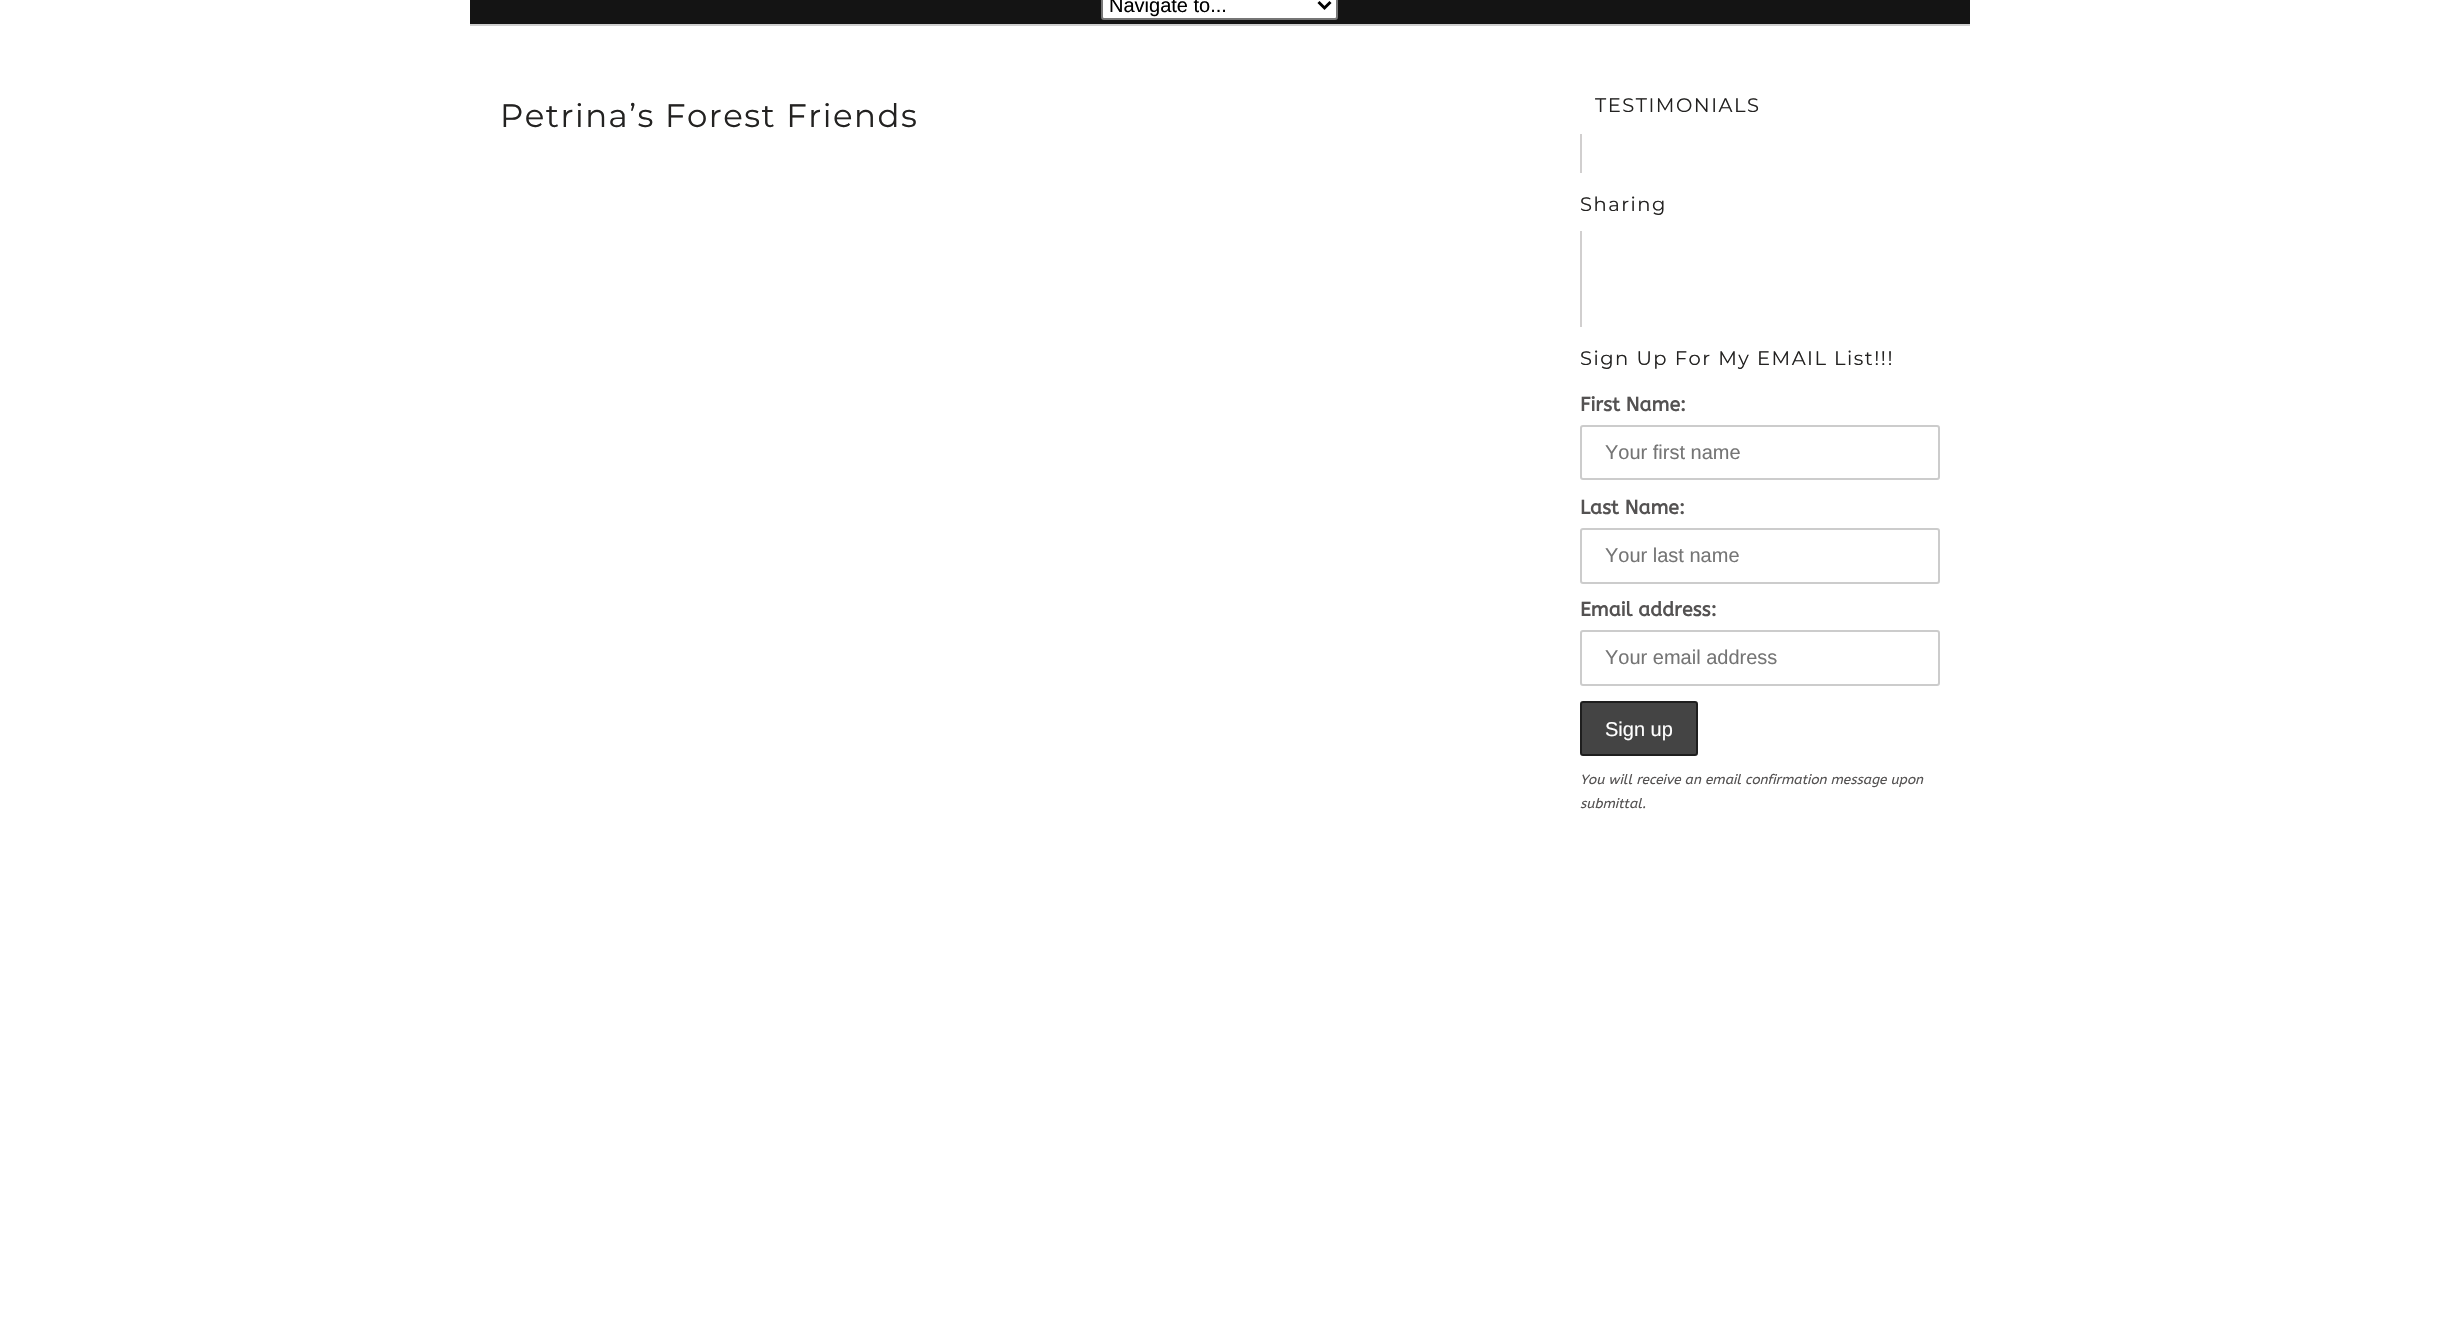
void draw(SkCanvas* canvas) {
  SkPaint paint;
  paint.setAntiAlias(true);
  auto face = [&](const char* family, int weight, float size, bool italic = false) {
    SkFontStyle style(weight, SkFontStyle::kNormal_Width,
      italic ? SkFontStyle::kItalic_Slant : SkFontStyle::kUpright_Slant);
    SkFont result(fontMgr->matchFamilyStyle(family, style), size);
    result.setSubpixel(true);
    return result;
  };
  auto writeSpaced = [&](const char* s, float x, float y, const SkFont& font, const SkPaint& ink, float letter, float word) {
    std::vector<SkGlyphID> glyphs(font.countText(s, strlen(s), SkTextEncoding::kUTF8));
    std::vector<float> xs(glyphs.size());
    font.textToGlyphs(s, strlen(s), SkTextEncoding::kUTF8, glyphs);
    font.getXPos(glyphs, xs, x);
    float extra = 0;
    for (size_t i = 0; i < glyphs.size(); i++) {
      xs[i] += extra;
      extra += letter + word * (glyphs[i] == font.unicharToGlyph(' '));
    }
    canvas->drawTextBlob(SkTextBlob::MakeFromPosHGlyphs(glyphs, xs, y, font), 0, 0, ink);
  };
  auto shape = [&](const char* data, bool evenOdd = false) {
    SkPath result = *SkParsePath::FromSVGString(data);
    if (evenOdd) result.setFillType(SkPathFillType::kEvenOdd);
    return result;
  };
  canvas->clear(0xffffffff);
  paint.setColor(0xff141414);
  canvas->drawRect(SkRect::MakeXYWH(470, 0, 1500, 24), paint);
  paint.setColor(0xffcfcfcf);
  canvas->drawRect(SkRect::MakeXYWH(470, 24, 1500, 2), paint);
  paint.setColor(0xffffffff);
  canvas->drawRoundRect(SkRect::MakeXYWH(1102, -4, 235, 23), 2, 2, paint);
  paint.setStroke(true);
  paint.setStrokeWidth(2);
  paint.setColor(0xff767676);
  canvas->drawRoundRect(SkRect::MakeXYWH(1102, -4, 235, 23), 2, 2, paint);
  paint.setStrokeWidth(3);
  paint.setColor(0xff000000);
  canvas->drawPath(shape("M1318.5 2L1324.5 8L1330.5 2"), paint);
  paint.setStroke(false);
  paint.setColor(0xffd1cfcf);
  canvas->drawRect(SkRect::MakeXYWH(1580, 134, 2, 39), paint);
  canvas->drawRect(SkRect::MakeXYWH(1580, 231, 2, 96), paint);
  paint.setStroke(true);
  paint.setStrokeWidth(2);
  paint.setColor(0xffcccccc);
  canvas->drawRoundRect(SkRect::MakeXYWH(1581, 426, 358, 53), 2, 2, paint);
  canvas->drawRoundRect(SkRect::MakeXYWH(1581, 529, 358, 54), 2, 2, paint);
  canvas->drawRoundRect(SkRect::MakeXYWH(1581, 631, 358, 54), 2, 2, paint);
  paint.setStroke(false);
  paint.setColor(0xff444444);
  canvas->drawRoundRect(SkRect::MakeXYWH(1581, 702, 116, 53), 2, 2, paint);
  paint.setStroke(true);
  paint.setColor(0xff1e1e1e);
  canvas->drawRoundRect(SkRect::MakeXYWH(1581, 702, 116, 53), 2, 2, paint);
  auto f0 = face("Liberation Sans", 400, 20);
  paint.setStroke(false);
  paint.setColor(0xff000000);
  canvas->drawString("Navigate to...", 1109, 12, f0, paint);
  auto f1 = face("Montserrat", 100, 32.4f);
  paint.setColor(0xff232221);
  writeSpaced("Petrina’s Forest Friends", 500, 127, f1, paint, 1.5f, 0);
  auto f2 = face("Montserrat", 100, 19.5f);
  {
    const struct { const char* s; float x, y; } items[] = {
      {"TESTIMONIALS", 1595, 112},
      {"Sharing", 1580, 211},
      {"Sign Up For My EMAIL List!!!", 1580, 365},
    };
    for (auto [s, x, y] : items) {
      writeSpaced(s, x, y, f2, paint, 1.5f, 0);
    }
  }
  auto f3 = face("ABeeZee", 700, 19.5f);
  paint.setColor(0xff545252);
  canvas->drawString("First Name:", 1580, 411, f3, paint);
  paint.setColor(0xff757575);
  canvas->drawString("Your first name", 1605, 459, f0, paint);
  paint.setColor(0xff545252);
  canvas->drawString("Last Name:", 1580, 514, f3, paint);
  paint.setColor(0xff757575);
  canvas->drawString("Your last name", 1605, 562, f0, paint);
  paint.setColor(0xff545252);
  canvas->drawString("Email address:", 1580, 616, f3, paint);
  paint.setColor(0xff757575);
  canvas->drawString("Your email address", 1605, 664, f0, paint);
  paint.setColor(0xffffffff);
  canvas->drawString("Sign up", 1605, 736, f0, paint);
  auto f4 = face("ABeeZee", 400, 13.5f, true);
  paint.setColor(0xff545252);
  canvas->drawString("You will receive an email confirmation message upon", 1580, 784, f4, paint);
  canvas->drawString("submittal.", 1580, 808, f4, paint);
}
